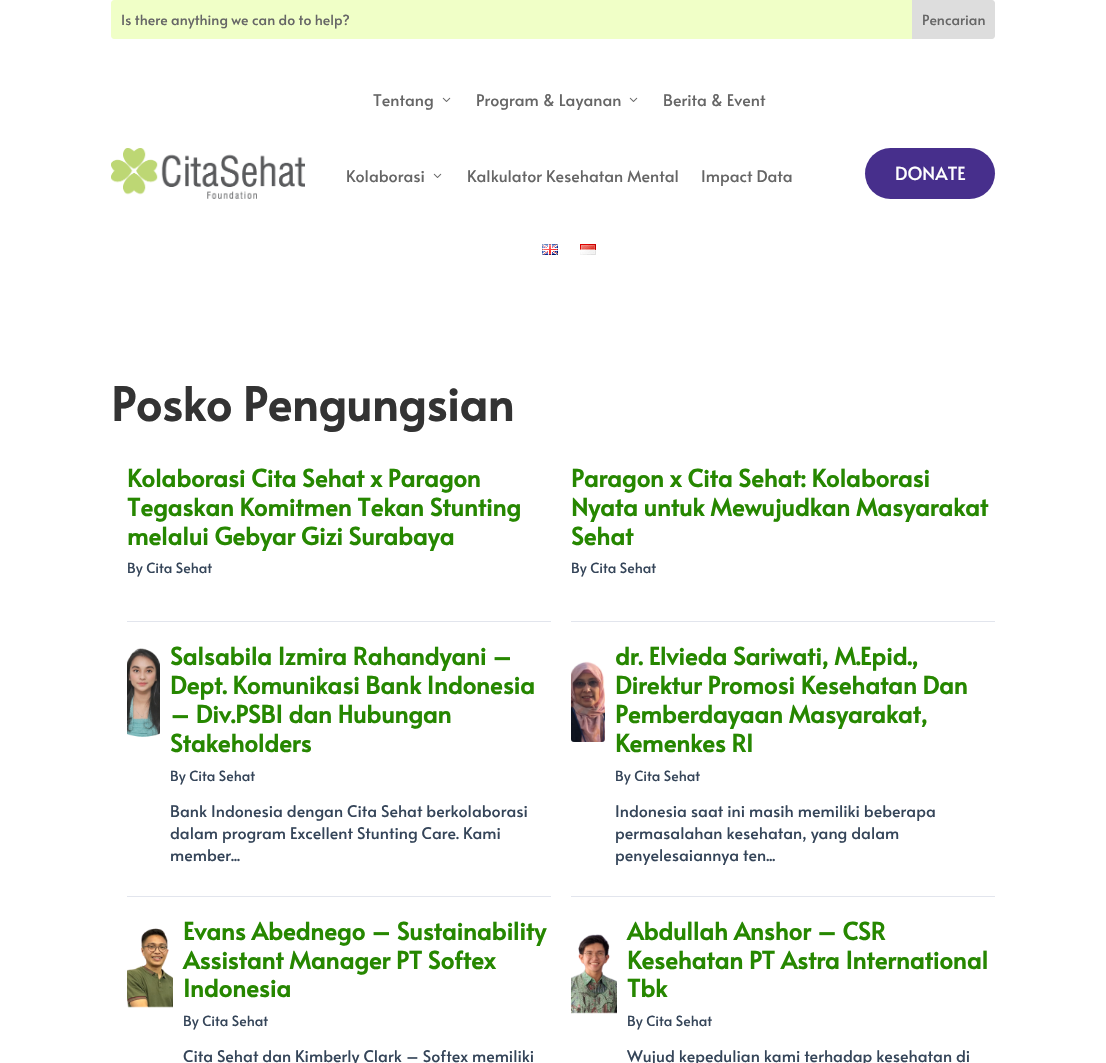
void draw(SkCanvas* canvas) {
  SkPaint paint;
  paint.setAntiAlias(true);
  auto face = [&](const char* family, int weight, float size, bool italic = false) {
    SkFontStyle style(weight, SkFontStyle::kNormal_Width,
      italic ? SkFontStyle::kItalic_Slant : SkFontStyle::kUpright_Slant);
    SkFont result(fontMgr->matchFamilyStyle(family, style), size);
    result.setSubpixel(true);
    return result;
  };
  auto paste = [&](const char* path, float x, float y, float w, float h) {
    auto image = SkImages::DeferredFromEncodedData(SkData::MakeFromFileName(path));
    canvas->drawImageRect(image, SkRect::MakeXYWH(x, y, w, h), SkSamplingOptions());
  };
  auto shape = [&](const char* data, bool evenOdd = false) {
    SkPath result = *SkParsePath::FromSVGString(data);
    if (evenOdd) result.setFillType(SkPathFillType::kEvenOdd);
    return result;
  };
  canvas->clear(0xffffffff);
  paint.setColor(0xfff0ffc7);
  canvas->drawPath(shape("M114 0H912V39H114C112.5 39 111 37.5 111 36V3C111 1.5 112.5 0 114 0Z"), paint);
  paint.setColor(0xffdddddd);
  canvas->drawPath(shape("M912 0H992C993.5 0 995 1.5 995 3V36C995 37.5 993.5 39 992 39H912Z"), paint);
  paste("img/1.png", 111, 148, 194, 51);
  paste("img/2.png", 442, 97, 9, 5);
  paste("img/2.png", 629, 97, 9, 5);
  paste("img/2.png", 433, 173, 9, 5);
  paste("img/3.png", 542, 244, 16, 11);
  paste("img/4.png", 580, 244, 16, 11);
  paint.setColor(0xff472f8c);
  canvas->drawRoundRect(SkRect::MakeXYWH(865, 148, 130, 51), 25.5f, 25.5f, paint);
  {
    const struct { float x, y, w, h; SkColor color; } items[] = {
      {127, 621, 424, 1, 0xffe2e5ed},
      {571, 621, 424, 1, 0xffe2e5ed},
      {127, 896, 424, 1, 0xffe2e5ed},
    };
    for (auto [x, y, w, h, color] : items) {
      paint.setColor(color);
      canvas->drawRect(SkRect::MakeXYWH(x, y, w, h), paint);
    }
  }
  paste("img/5.png", 127, 648, 33, 89);
  canvas->drawRect(SkRect::MakeXYWH(571, 896, 424, 1), paint);
  paste("img/6.png", 571, 661, 34, 81);
  paste("img/7.png", 127, 928, 46, 80);
  paste("img/8.png", 571, 934, 46, 80);
  auto f0 = face("Alata", 400, 14);
  paint.setColor(0xff666666);
  canvas->drawString("Is there anything we can do to help?", 121, 25, f0, paint);
  canvas->drawString("Pencarian", 922, 25, f0, paint);
  auto f1 = face("Alata", 400, 16);
  {
    const struct { const char* s; float x, y; } items[] = {
      {"Tentang", 373, 106},
      {"Program & Layanan", 476, 106},
      {"Berita & Event", 663, 106},
      {"Kolaborasi", 346, 182},
      {"Kalkulator Kesehatan Mental", 467, 182},
      {"Impact Data", 701, 182},
    };
    for (auto [s, x, y] : items) {
      canvas->drawString(s, x, y, f1, paint);
    }
  }
  auto f2 = face("Alata", 400, 18);
  paint.setColor(0xffffffff);
  canvas->drawString("DONATE", 895, 180, f2, paint);
  auto f3 = face("Alata", 700, 46);
  paint.setColor(0xff333333);
  canvas->drawString("Posko Pengungsian", 111, 421, f3, paint);
  auto f4 = face("Alata", 700, 24);
  paint.setColor(0xff268700);
  {
    const struct { const char* s; float x, y; } items[] = {
      {"Kolaborasi Cita Sehat x Paragon", 127, 487},
      {"Tegaskan Komitmen Tekan Stunting", 127, 516},
      {"melalui Gebyar Gizi Surabaya", 127, 545},
    };
    for (auto [s, x, y] : items) {
      canvas->drawString(s, x, y, f4, paint);
    }
  }
  paint.setColor(0xff354559);
  canvas->drawString("By Cita Sehat", 127, 573, f0, paint);
  paint.setColor(0xff268700);
  {
    const struct { const char* s; float x, y; } items[] = {
      {"Paragon x Cita Sehat: Kolaborasi", 571, 487},
      {"Nyata untuk Mewujudkan Masyarakat", 571, 516},
      {"Sehat", 571, 545},
    };
    for (auto [s, x, y] : items) {
      canvas->drawString(s, x, y, f4, paint);
    }
  }
  paint.setColor(0xff354559);
  canvas->drawString("By Cita Sehat", 571, 573, f0, paint);
  paint.setColor(0xff268700);
  {
    const struct { const char* s; float x, y; } items[] = {
      {"Salsabila Izmira Rahandyani –", 170, 665},
      {"Dept. Komunikasi Bank Indonesia", 170, 694},
      {"– Div.PSBI dan Hubungan", 170, 723},
      {"Stakeholders", 170, 752},
    };
    for (auto [s, x, y] : items) {
      canvas->drawString(s, x, y, f4, paint);
    }
  }
  paint.setColor(0xff354559);
  canvas->drawString("By Cita Sehat", 170, 781, f0, paint);
  {
    const struct { const char* s; float x, y; } items[] = {
      {"Bank Indonesia dengan Cita Sehat berkolaborasi", 170, 817},
      {"dalam program Excellent Stunting Care. Kami", 170, 839},
      {"member...", 170, 861},
    };
    for (auto [s, x, y] : items) {
      canvas->drawString(s, x, y, f1, paint);
    }
  }
  paint.setColor(0xff268700);
  {
    const struct { const char* s; float x, y; } items[] = {
      {"dr. Elvieda Sariwati, M.Epid.,", 615, 665},
      {"Direktur Promosi Kesehatan Dan", 615, 694},
      {"Pemberdayaan Masyarakat,", 615, 723},
      {"Kemenkes RI", 615, 752},
    };
    for (auto [s, x, y] : items) {
      canvas->drawString(s, x, y, f4, paint);
    }
  }
  paint.setColor(0xff354559);
  canvas->drawString("By Cita Sehat", 615, 781, f0, paint);
  {
    const struct { const char* s; float x, y; } items[] = {
      {"Indonesia saat ini masih memiliki beberapa", 615, 817},
      {"permasalahan kesehatan, yang dalam", 615, 839},
      {"penyelesaiannya ten...", 615, 861},
    };
    for (auto [s, x, y] : items) {
      canvas->drawString(s, x, y, f1, paint);
    }
  }
  paint.setColor(0xff268700);
  {
    const struct { const char* s; float x, y; } items[] = {
      {"Evans Abednego – Sustainability", 183, 940},
      {"Assistant Manager PT Softex", 183, 969},
      {"Indonesia", 183, 997},
    };
    for (auto [s, x, y] : items) {
      canvas->drawString(s, x, y, f4, paint);
    }
  }
  paint.setColor(0xff354559);
  canvas->drawString("By Cita Sehat", 183, 1026, f0, paint);
  canvas->drawString("Cita Sehat dan Kimberly Clark – Softex memiliki", 183, 1062, f1, paint);
  paint.setColor(0xff268700);
  {
    const struct { const char* s; float x, y; } items[] = {
      {"Abdullah Anshor – CSR", 627, 940},
      {"Kesehatan PT Astra International", 627, 969},
      {"Tbk", 627, 997},
    };
    for (auto [s, x, y] : items) {
      canvas->drawString(s, x, y, f4, paint);
    }
  }
  paint.setColor(0xff354559);
  canvas->drawString("By Cita Sehat", 627, 1026, f0, paint);
  canvas->drawString("Wujud kepedulian kami terhadap kesehatan di", 627, 1062, f1, paint);
}
